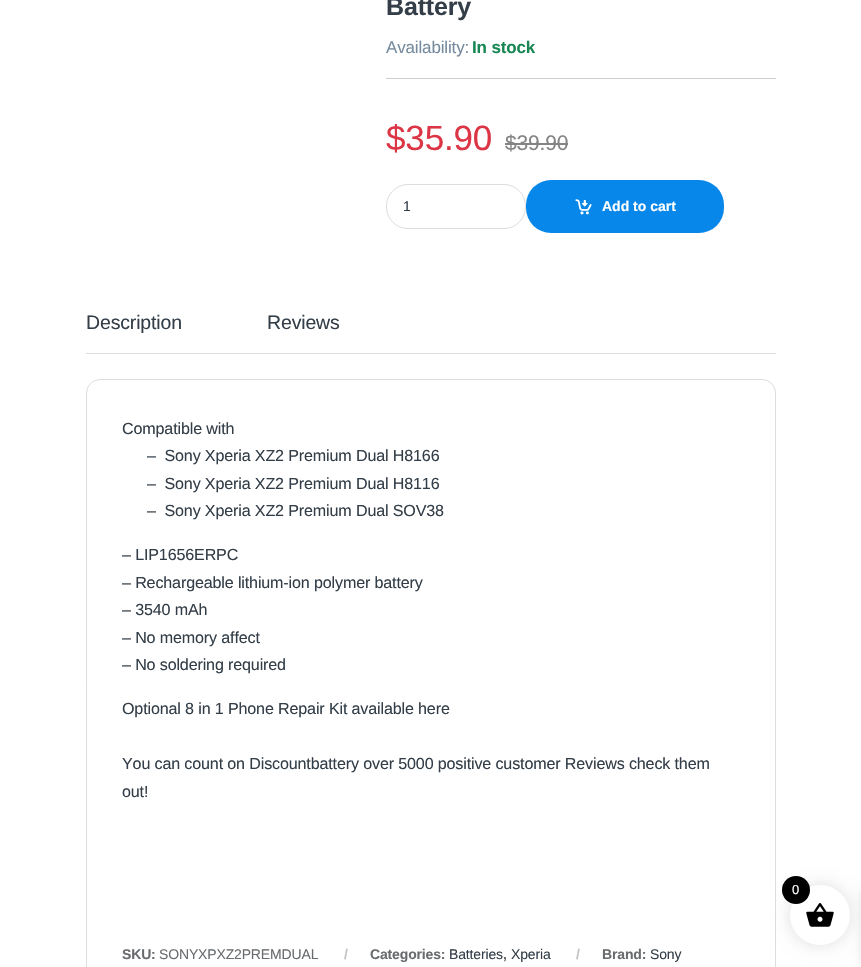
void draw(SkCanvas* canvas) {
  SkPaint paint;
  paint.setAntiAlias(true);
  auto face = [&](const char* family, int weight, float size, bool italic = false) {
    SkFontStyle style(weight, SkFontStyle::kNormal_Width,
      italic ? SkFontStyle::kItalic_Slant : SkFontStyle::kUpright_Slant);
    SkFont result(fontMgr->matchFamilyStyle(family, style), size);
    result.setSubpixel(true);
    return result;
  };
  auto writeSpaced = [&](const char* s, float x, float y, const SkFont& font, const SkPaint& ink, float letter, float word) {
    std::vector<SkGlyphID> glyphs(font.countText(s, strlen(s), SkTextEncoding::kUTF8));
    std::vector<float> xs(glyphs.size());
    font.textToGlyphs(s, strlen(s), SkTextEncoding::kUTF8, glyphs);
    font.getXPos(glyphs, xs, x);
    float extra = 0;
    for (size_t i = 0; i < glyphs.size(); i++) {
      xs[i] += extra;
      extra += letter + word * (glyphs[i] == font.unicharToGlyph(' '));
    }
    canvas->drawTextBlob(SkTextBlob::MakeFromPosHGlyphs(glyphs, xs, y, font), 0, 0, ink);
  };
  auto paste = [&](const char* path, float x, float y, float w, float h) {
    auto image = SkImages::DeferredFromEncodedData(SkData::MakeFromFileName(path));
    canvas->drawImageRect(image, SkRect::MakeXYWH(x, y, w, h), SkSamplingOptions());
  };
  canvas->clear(0xffffffff);
  paint.setColor(0xffcccfd1);
  canvas->drawRect(SkRect::MakeXYWH(386, 78, 390, 1), paint);
  paint.setColor(0xff848484);
  canvas->drawRect(SkRect::MakeXYWH(505, 143, 63, 2), paint);
  paint.setStroke(true);
  paint.setStrokeWidth(1);
  paint.setColor(0xffdddddd);
  canvas->drawRoundRect(SkRect::MakeXYWH(386.5f, 184.5f, 139, 44), 21.5f, 21.5f, paint);
  paint.setStroke(false);
  paint.setColor(0xff0787ea);
  canvas->drawRoundRect(SkRect::MakeXYWH(526, 180, 198, 53), 25, 25, paint);
  paste("img/1.png", 575, 199, 17, 16);
  paint.setColor(0xffdddddd);
  canvas->drawRect(SkRect::MakeXYWH(86, 353, 690, 1), paint);
  paint.setStroke(true);
  canvas->drawRoundRect(SkRect::MakeXYWH(86.5f, 379.5f, 689, 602), 13.5f, 13.5f, paint);
  paint.setStroke(false);
  paint.setColor(0x1a000000);
  paint.setMaskFilter(SkMaskFilter::MakeBlur(kNormal_SkBlurStyle, 7.5f));
  canvas->drawRoundRect(SkRect::MakeXYWH(788, 883, 64, 64), 32, 32, paint);
  paint.setMaskFilter(nullptr);
  paint.setMaskFilter(SkMaskFilter::MakeBlur(kNormal_SkBlurStyle, 5));
  canvas->drawRect(SkRect::MakeXYWH(861, 891, 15, 75), paint);
  paint.setMaskFilter(nullptr);
  paint.setColor(0xffffffff);
  canvas->drawCircle(820, 915, 30, paint);
  paste("img/2.png", 806, 903, 28, 24);
  paint.setColor(0xff000000);
  canvas->drawCircle(796, 890, 14, paint);
  auto f0 = face("Liberation Sans", 700, 25);
  paint.setColor(0xff333e48);
  writeSpaced("Battery", 386, 15, f0, paint, -0.15f, 0);
  auto f1 = face("Liberation Sans", 400, 17);
  paint.setColor(0xff768b9e);
  writeSpaced("Availability:", 386, 53, f1, paint, -0.15f, 0);
  auto f2 = face("Liberation Sans", 700, 17);
  paint.setColor(0xff198754);
  writeSpaced("In stock", 472, 53, f2, paint, -0.15f, 0);
  auto f3 = face("Liberation Sans", 400, 35);
  paint.setColor(0xffdc3545);
  writeSpaced("$35.90", 386, 150, f3, paint, -0.15f, 0);
  auto f4 = face("Liberation Sans", 400, 21);
  paint.setColor(0xff848484);
  writeSpaced("$39.90", 505, 150, f4, paint, -0.15f, 0);
  auto f5 = face("Liberation Sans", 400, 14);
  paint.setColor(0xff333e48);
  canvas->drawString("1", 403, 211, f5, paint);
  auto f6 = face("Liberation Sans", 700, 14);
  paint.setColor(0xffffffff);
  canvas->drawString("Add to cart", 602, 211, f6, paint);
  auto f7 = face("Liberation Sans", 400, 19.5f);
  paint.setColor(0xff333e48);
  writeSpaced("Description", 86, 329, f7, paint, -0.15f, 0);
  writeSpaced("Reviews", 267, 329, f7, paint, -0.15f, 0);
  auto f8 = face("Liberation Sans", 400, 16.1f);
  {
    const struct { const char* s; float x, y; } items[] = {
      {"Compatible with", 122, 434},
      {"–  Sony Xperia XZ2 Premium Dual H8166", 147, 461},
      {"–  Sony Xperia XZ2 Premium Dual H8116", 147, 489},
      {"–  Sony Xperia XZ2 Premium Dual SOV38", 147, 516},
      {"– LIP1656ERPC", 122, 560},
      {"– Rechargeable lithium-ion polymer battery", 122, 588},
      {"– 3540 mAh", 122, 615},
      {"– No memory affect", 122, 643},
      {"– No soldering required", 122, 670},
      {"Optional 8 in 1 Phone Repair Kit available here", 122, 714},
      {"You can count on Discountbattery over 5000 positive customer Reviews check them", 122, 769},
      {"out!", 122, 797},
    };
    for (auto [s, x, y] : items) {
      writeSpaced(s, x, y, f8, paint, -0.15f, 0);
    }
  }
  paint.setColor(0xff686c6f);
  writeSpaced("SKU:", 122, 959, f6, paint, -0.15f, 0);
  writeSpaced("SONYXPXZ2PREMDUAL", 159, 959, f5, paint, -0.15f, 0);
  paint.setColor(0xffc5c5c5);
  writeSpaced("/", 344, 959, f6, paint, -0.15f, 0);
  paint.setColor(0xff686c6f);
  writeSpaced("Categories:", 370, 959, f6, paint, -0.15f, 0);
  paint.setColor(0xff333e48);
  writeSpaced("Batteries", 449, 959, f5, paint, -0.15f, 0);
  paint.setColor(0xff686c6f);
  writeSpaced(",", 503, 959, f6, paint, -0.15f, 0);
  paint.setColor(0xff333e48);
  writeSpaced("Xperia", 511, 959, f5, paint, -0.15f, 0);
  paint.setColor(0xffc5c5c5);
  writeSpaced("/", 576, 959, f6, paint, -0.15f, 0);
  paint.setColor(0xff686c6f);
  writeSpaced("Brand:", 602, 959, f6, paint, -0.15f, 0);
  paint.setColor(0xff333e48);
  writeSpaced("Sony", 650, 959, f5, paint, -0.15f, 0);
  auto f9 = face("Liberation Sans", 400, 13);
  paint.setColor(0xffffffff);
  writeSpaced("0", 792, 894, f9, paint, -0.15f, 0);
}
